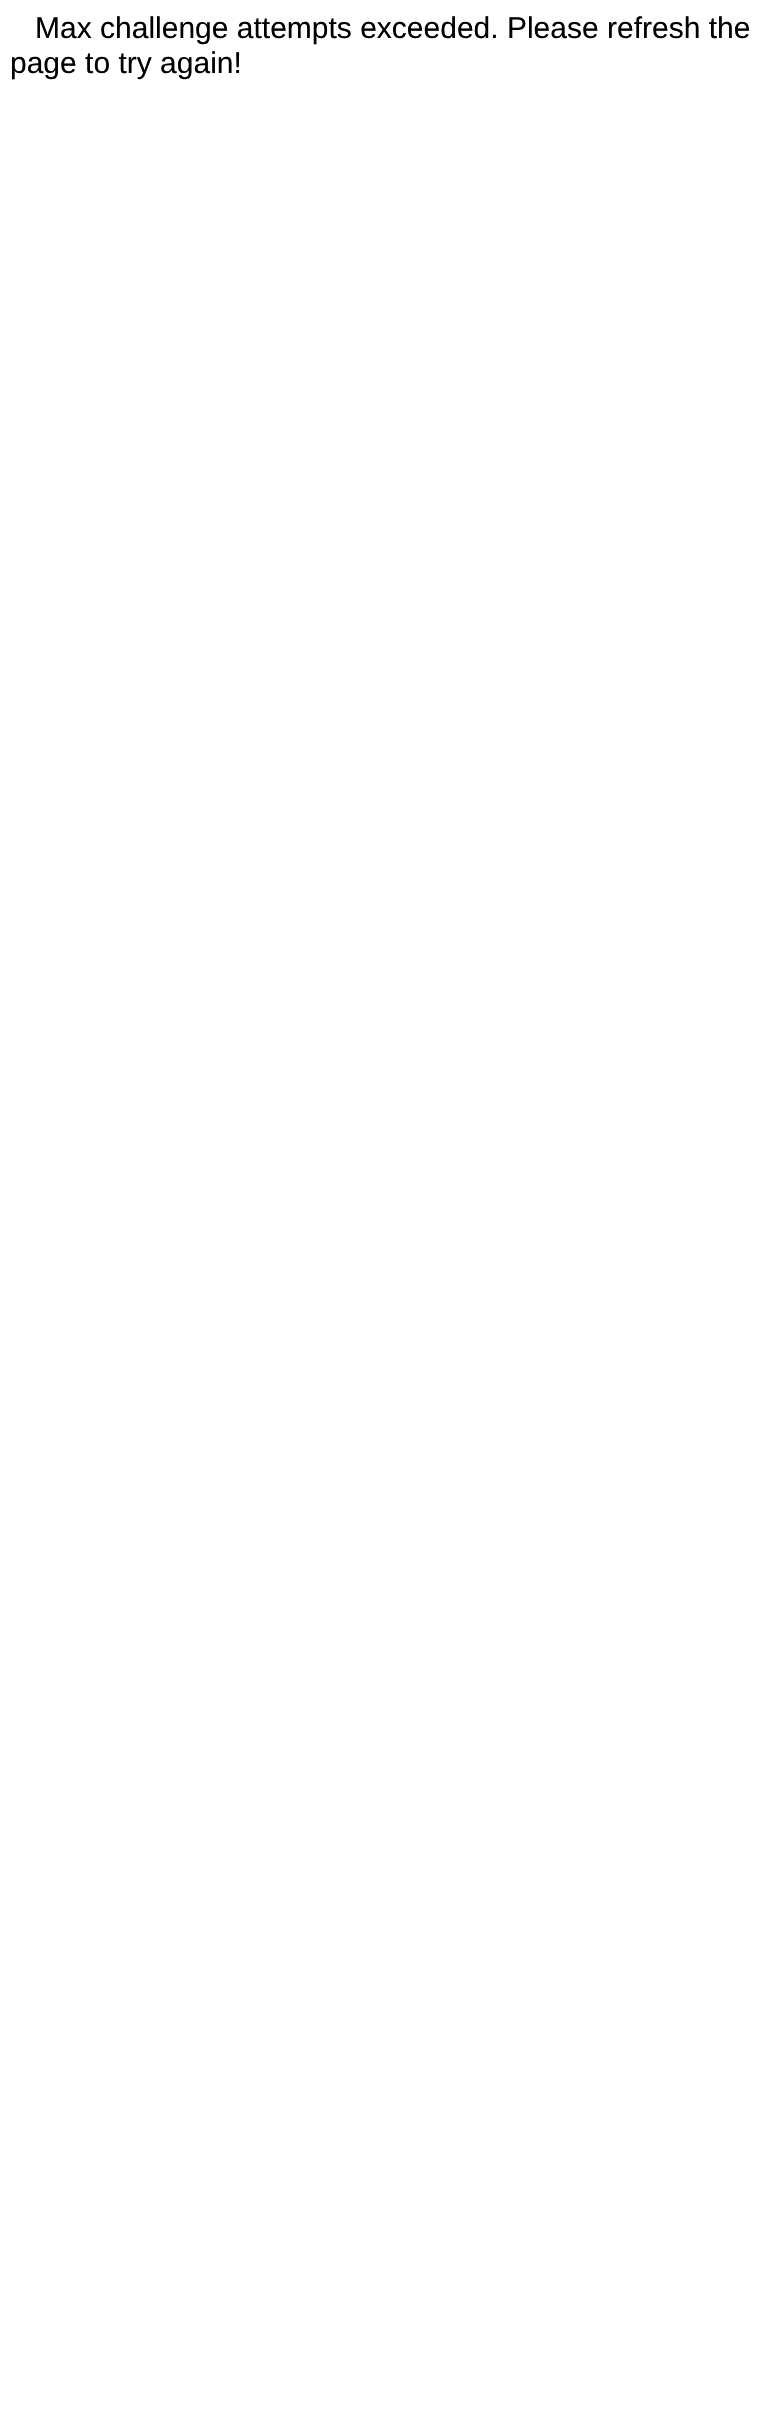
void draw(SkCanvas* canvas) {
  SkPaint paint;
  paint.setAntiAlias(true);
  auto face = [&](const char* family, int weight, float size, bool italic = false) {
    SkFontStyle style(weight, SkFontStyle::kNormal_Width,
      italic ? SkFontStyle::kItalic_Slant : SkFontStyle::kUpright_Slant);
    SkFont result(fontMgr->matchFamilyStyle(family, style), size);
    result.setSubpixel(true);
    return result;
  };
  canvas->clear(0xffffffff);
  auto f0 = face("Liberation Sans", 400, 30);
  paint.setColor(0xff000000);
  canvas->drawString("Max challenge attempts exceeded. Please refresh the", 35, 38, f0, paint);
  canvas->drawString("page to try again!", 10, 73, f0, paint);
}
